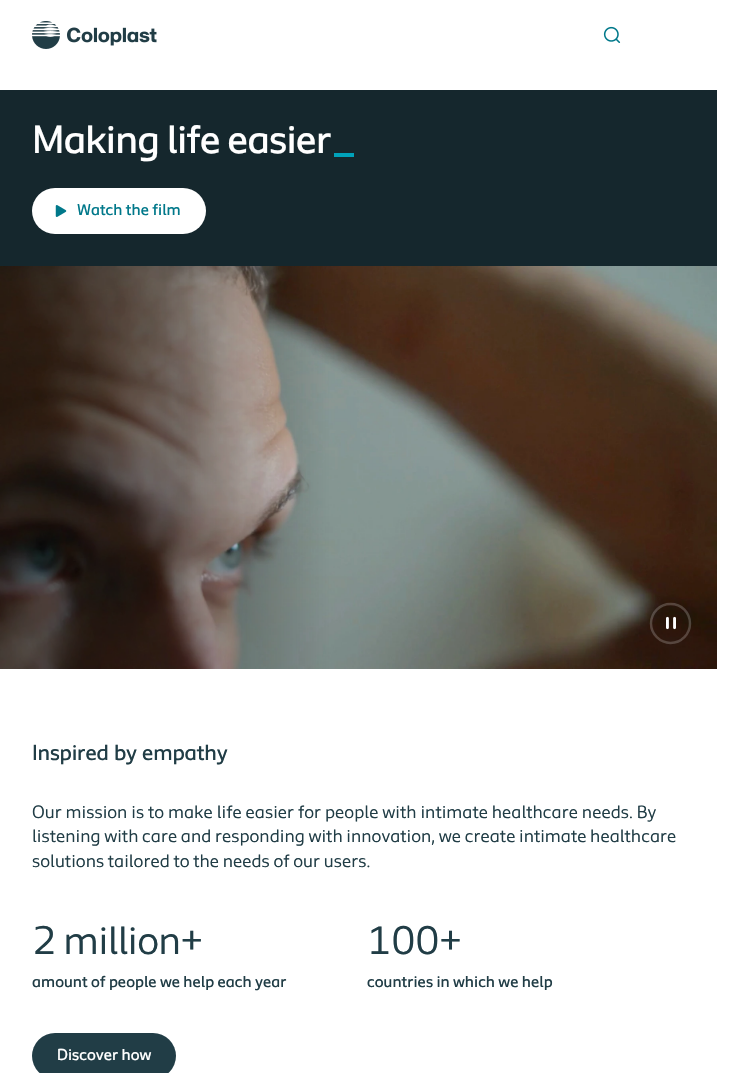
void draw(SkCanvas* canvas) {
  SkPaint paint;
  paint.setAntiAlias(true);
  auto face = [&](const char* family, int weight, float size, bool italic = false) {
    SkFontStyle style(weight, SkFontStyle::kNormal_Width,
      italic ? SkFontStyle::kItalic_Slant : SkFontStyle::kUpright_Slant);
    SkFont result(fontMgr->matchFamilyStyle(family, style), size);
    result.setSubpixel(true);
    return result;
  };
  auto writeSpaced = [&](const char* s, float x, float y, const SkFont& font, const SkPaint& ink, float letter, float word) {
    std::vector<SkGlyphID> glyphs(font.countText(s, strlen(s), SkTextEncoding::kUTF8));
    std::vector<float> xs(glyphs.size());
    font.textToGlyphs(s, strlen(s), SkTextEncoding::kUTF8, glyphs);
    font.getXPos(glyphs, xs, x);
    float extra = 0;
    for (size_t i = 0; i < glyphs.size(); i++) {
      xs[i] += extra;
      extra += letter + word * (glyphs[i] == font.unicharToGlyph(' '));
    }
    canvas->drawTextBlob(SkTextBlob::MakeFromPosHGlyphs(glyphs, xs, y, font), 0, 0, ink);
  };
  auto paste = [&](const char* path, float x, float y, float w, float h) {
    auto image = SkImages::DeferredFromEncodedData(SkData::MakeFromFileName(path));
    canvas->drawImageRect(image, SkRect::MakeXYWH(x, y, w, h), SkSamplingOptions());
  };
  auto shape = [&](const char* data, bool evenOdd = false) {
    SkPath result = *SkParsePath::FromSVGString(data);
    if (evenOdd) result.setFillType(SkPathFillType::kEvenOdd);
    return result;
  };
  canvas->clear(0xffffffff);
  paste("img/1.png", 32, 21, 125, 28);
  paste("img/2.png", 603, 26, 18, 17);
  paint.setColor(0xff15272d);
  canvas->drawRect(SkRect::MakeXYWH(0, 90, 717, 176), paint);
  paint.setColor(0xff00a2ba);
  canvas->drawRect(SkRect::MakeXYWH(334, 153, 20, 4), paint);
  paint.setColor(0xffffffff);
  canvas->drawRoundRect(SkRect::MakeXYWH(32, 188, 174, 46), 23, 23, paint);
  paste("img/3.png", 55, 205, 12, 12);
  paste("img/4.png", 0, 266, 717, 403);
  paint.setStroke(true);
  paint.setStrokeWidth(2.4f);
  paint.setColor(0x33ffffff);
  canvas->drawPath(shape("M651 623.5C651 612.5 660 604 670.5 604C681.5 604 690 612.5 690 623.5C690 634 681.5 643 670.5 643C660 643 651 634 651 623.5Z"), paint);
  paste("img/5.png", 666, 616, 10, 14);
  paint.setStroke(false);
  paint.setColor(0xff213d46);
  canvas->drawRoundRect(SkRect::MakeXYWH(32, 1033, 144, 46), 23, 23, paint);
  auto f0 = face("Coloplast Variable", 500, 40);
  paint.setColor(0xffffffff);
  writeSpaced("Making life easier", 32, 153, f0, paint, -0.75f, 0);
  auto f1 = face("Coloplast Variable", 500, 16);
  paint.setColor(0xff00788a);
  canvas->drawString("Watch the film", 77, 215, f1, paint);
  auto f2 = face("Coloplast Variable", 500, 22);
  paint.setColor(0xff213d46);
  writeSpaced("Inspired by empathy", 32, 760, f2, paint, -0.25f, 1);
  auto f3 = face("Coloplast Variable", 400, 18);
  writeSpaced("Our mission is to make life easier for people with intimate healthcare needs. By", 32, 818, f3, paint, 0, 0.25f);
  canvas->drawString("listening with care and responding with innovation, we create intimate healthcare", 32, 842, f3, paint);
  canvas->drawString("solutions tailored to the needs of our users.", 32, 867, f3, paint);
  auto f4 = face("Coloplast Variable", 400, 40);
  writeSpaced("2 million+", 32, 954, f4, paint, -0.75f, 0);
  canvas->drawString("amount of people we help each year", 32, 987, f1, paint);
  writeSpaced("100+", 367, 954, f4, paint, -0.75f, 0);
  canvas->drawString("countries in which we help", 367, 987, f1, paint);
  paint.setColor(0xffffffff);
  canvas->drawString("Discover how", 57, 1060, f1, paint);
}
